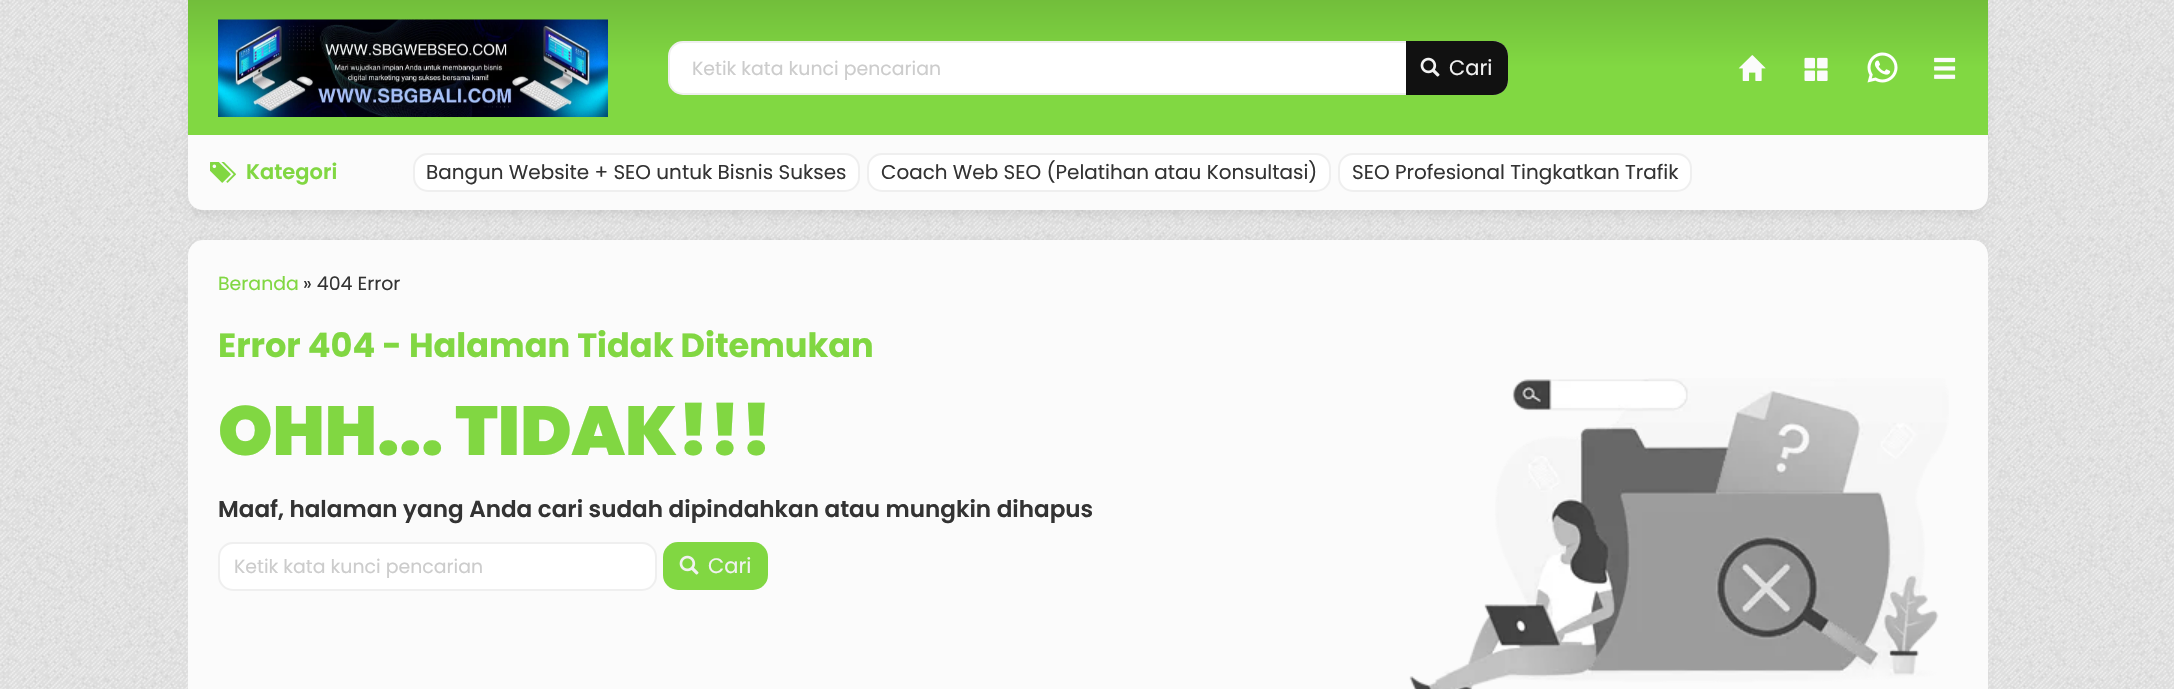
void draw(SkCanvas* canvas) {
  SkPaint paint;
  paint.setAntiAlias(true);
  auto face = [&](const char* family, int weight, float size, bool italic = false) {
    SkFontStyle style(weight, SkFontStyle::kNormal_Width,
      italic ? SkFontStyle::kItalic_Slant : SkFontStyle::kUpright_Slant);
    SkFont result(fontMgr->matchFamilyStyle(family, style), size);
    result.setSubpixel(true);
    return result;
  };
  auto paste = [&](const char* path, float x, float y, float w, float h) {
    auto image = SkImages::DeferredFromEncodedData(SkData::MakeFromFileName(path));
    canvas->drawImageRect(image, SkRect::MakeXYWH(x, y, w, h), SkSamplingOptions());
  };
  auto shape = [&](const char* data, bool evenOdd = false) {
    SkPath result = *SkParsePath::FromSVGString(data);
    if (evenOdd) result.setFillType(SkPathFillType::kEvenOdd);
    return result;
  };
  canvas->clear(0xfff1f1f1);
  paste("img/1.png", 0, 0, 2174, 689);
  paint.setColor(0x12000000);
  paint.setMaskFilter(SkMaskFilter::MakeBlur(kNormal_SkBlurStyle, 4.5f));
  canvas->drawRoundRect(SkRect::MakeXYWH(189, 8, 1797, 207), 14, 14, paint);
  paint.setMaskFilter(nullptr);
  paint.setColor(0xfffbfbfb);
  canvas->drawPath(shape("M188 0H1988V195C1988 203.5 1981.5 210 1973 210H203C194.5 210 188 203.5 188 195Z"), paint);
  {
    const SkColor colors[] = {0xff72be3b, 0xff81d842, 0xff81d842};
    const float stops[] = {0, 0.5f, 1};
    const SkPoint ends[] = {{1088, 0}, {1088, 135}};
    paint.setShader(SkGradientShader::MakeLinear(ends, colors, stops, 3, SkTileMode::kClamp));
    paint.setAlpha(255);
  }
  canvas->drawRect(SkRect::MakeXYWH(188, 0, 1800, 135), paint);
  paste("img/2.png", 218, 19, 390, 98);
  paint.setShader(nullptr);
  paint.setColor(0xffffffff);
  canvas->drawRoundRect(SkRect::MakeXYWH(669, 42, 838, 52), 14, 14, paint);
  paint.setStroke(true);
  paint.setStrokeWidth(2);
  paint.setColor(0xffefefef);
  canvas->drawRoundRect(SkRect::MakeXYWH(669, 42, 838, 52), 14, 14, paint);
  paint.setStroke(false);
  paint.setColor(0xff111111);
  canvas->drawPath(shape("M1406 41H1493C1501.5 41 1508 47.5 1508 56V80C1508 88.5 1501.5 95 1493 95H1406Z"), paint);
  paste("img/3.png", 1420, 57, 20, 20);
  paste("img/4.png", 1738, 55, 28, 26);
  paste("img/5.png", 1804, 57, 24, 24);
  paste("img/6.png", 1867, 52, 31, 31);
  paste("img/7.png", 1934, 57, 22, 22);
  paste("img/8.png", 210, 162, 26, 21);
  paint.setColor(0xffffffff);
  canvas->drawRoundRect(SkRect::MakeXYWH(414, 154, 445, 37), 14, 14, paint);
  paint.setStroke(true);
  paint.setColor(0xffefefef);
  canvas->drawRoundRect(SkRect::MakeXYWH(414, 154, 445, 37), 14, 14, paint);
  paint.setStroke(false);
  paint.setColor(0xffffffff);
  canvas->drawRoundRect(SkRect::MakeXYWH(868, 154, 462, 37), 14, 14, paint);
  paint.setStroke(true);
  paint.setColor(0xffefefef);
  canvas->drawRoundRect(SkRect::MakeXYWH(868, 154, 462, 37), 14, 14, paint);
  paint.setStroke(false);
  paint.setColor(0xffffffff);
  canvas->drawRoundRect(SkRect::MakeXYWH(1339, 154, 352, 37), 14, 14, paint);
  paint.setStroke(true);
  paint.setColor(0xffefefef);
  canvas->drawRoundRect(SkRect::MakeXYWH(1339, 154, 352, 37), 14, 14, paint);
  canvas->save();
  canvas->clipRect(SkRect::MakeXYWH(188, 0, 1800, 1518));
  paint.setStroke(false);
  paint.setColor(0x12000000);
  paint.setMaskFilter(SkMaskFilter::MakeBlur(kNormal_SkBlurStyle, 4.5f));
  canvas->drawRoundRect(SkRect::MakeXYWH(188, 242, 1800, 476), 15, 15, paint);
  paint.setMaskFilter(nullptr);
  canvas->restore();
  paint.setColor(0xfffbfbfb);
  canvas->drawRoundRect(SkRect::MakeXYWH(188, 240, 1800, 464), 15, 15, paint);
  paste("img/9.png", 1409, 378, 540, 311);
  paint.setColor(0xffffffff);
  canvas->drawRoundRect(SkRect::MakeXYWH(219, 543, 437, 47), 14, 14, paint);
  paint.setStroke(true);
  paint.setColor(0xffefefef);
  canvas->drawRoundRect(SkRect::MakeXYWH(219, 543, 437, 47), 14, 14, paint);
  paint.setStroke(false);
  paint.setColor(0xff81d742);
  canvas->drawRoundRect(SkRect::MakeXYWH(663, 542, 105, 48), 15, 15, paint);
  paste("img/10.png", 679, 555, 20, 20);
  auto f0 = face("Poppins", 400, 18.9f);
  paint.setColor(0xffcccccc);
  canvas->drawString("Ketik kata kunci pencarian", 692, 75, f0, paint);
  auto f1 = face("Poppins", 400, 21);
  paint.setColor(0xfff1f1f1);
  canvas->drawString("Cari", 1449, 75, f1, paint);
  auto f2 = face("Poppins", 600, 21);
  paint.setColor(0xff81d742);
  canvas->drawString("Kategori", 246, 179, f2, paint);
  auto f3 = face("Poppins", 400, 19.95f);
  paint.setColor(0xff333333);
  {
    const struct { const char* s; float x, y; } items[] = {
      {"Bangun Website + SEO untuk Bisnis Sukses", 426, 179},
      {"Coach Web SEO (Pelatihan atau Konsultasi)", 881, 179},
      {"SEO Profesional Tingkatkan Trafik", 1352, 179},
    };
    for (auto [s, x, y] : items) {
      canvas->drawString(s, x, y, f3, paint);
    }
  }
  paint.setColor(0xff81d742);
  canvas->drawString("Beranda", 218, 290, f0, paint);
  paint.setColor(0xff333333);
  canvas->drawString("» 404 Error", 303, 290, f0, paint);
  auto f4 = face("Poppins", 700, 33.6f);
  paint.setColor(0xff81d742);
  canvas->drawString("Error 404 - Halaman Tidak Ditemukan", 218, 357, f4, paint);
  auto f5 = face("Poppins", 900, 69.25f);
  canvas->drawString("OHH... TIDAK!!!", 218, 455, f5, paint);
  auto f6 = face("Poppins", 600, 23.1f);
  paint.setColor(0xff333333);
  canvas->drawString("Maaf, halaman yang Anda cari sudah dipindahkan atau mungkin dihapus", 218, 517, f6, paint);
  paint.setColor(0xffcccccc);
  canvas->drawString("Ketik kata kunci pencarian", 234, 573, f0, paint);
  paint.setColor(0xfff1f1f1);
  canvas->drawString("Cari", 708, 573, f1, paint);
}
